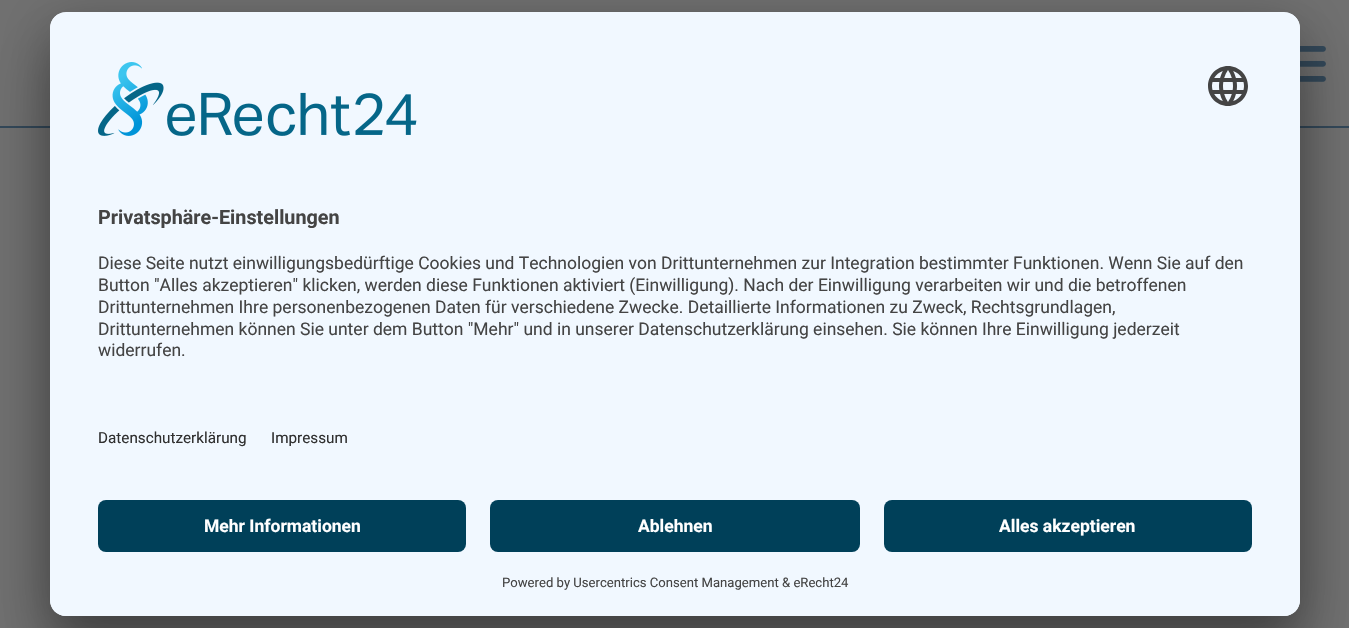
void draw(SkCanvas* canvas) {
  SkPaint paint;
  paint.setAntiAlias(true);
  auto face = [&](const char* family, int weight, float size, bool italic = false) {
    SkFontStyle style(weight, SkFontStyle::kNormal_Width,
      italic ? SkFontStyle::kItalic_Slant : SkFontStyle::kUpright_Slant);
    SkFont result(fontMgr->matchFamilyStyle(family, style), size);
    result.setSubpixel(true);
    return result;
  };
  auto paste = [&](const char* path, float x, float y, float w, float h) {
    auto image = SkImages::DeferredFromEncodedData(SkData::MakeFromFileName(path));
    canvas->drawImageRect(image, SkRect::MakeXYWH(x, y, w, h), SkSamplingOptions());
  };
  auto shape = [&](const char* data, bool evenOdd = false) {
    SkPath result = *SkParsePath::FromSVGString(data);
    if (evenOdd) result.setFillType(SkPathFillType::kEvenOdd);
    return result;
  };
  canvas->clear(0xff707070);
  paint.setColor(0xff334859);
  canvas->drawRect(SkRect::MakeXYWH(0, 126, 1349, 2), paint);
  paste("img/1.png", 1300, 46, 26, 36);
  paint.setColor(0x4d000000);
  paint.setMaskFilter(SkMaskFilter::MakeBlur(kNormal_SkBlurStyle, 28));
  canvas->drawRoundRect(SkRect::MakeXYWH(50, 52, 1250, 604), 16, 16, paint);
  paint.setMaskFilter(nullptr);
  paint.setColor(0x38000000);
  paint.setMaskFilter(SkMaskFilter::MakeBlur(kNormal_SkBlurStyle, 26));
  canvas->drawRoundRect(SkRect::MakeXYWH(50, 22, 1250, 604), 16, 16, paint);
  paint.setMaskFilter(nullptr);
  paint.setColor(0xfff1f8ff);
  canvas->drawRoundRect(SkRect::MakeXYWH(50, 12, 1250, 604), 16, 16, paint);
  canvas->save();
  canvas->clipPath(shape("M66 12H1284C1293 12 1300 19 1300 28V600C1300 609 1293 616 1284 616H66C57 616 50 609 50 600V28C50 19 57 12 66 12Z"), true);
  canvas->clipPath(shape("M66 12H1284C1293 12 1300 19 1300 28V484H50V28C50 19 57 12 66 12Z"), true);
  canvas->drawRect(SkRect::MakeXYWH(50, 14, 1250, 470), paint);
  canvas->restore();
  paste("img/2.png", 98, 62, 319, 74);
  paste("img/3.png", 1208, 66, 40, 40);
  canvas->drawPath(shape("M50 484H1300V600C1300 609 1293 616 1284 616H66C57 616 50 609 50 600Z"), paint);
  paint.setColor(0xff004059);
  canvas->drawRoundRect(SkRect::MakeXYWH(98, 500, 368, 52), 8, 8, paint);
  canvas->drawRoundRect(SkRect::MakeXYWH(490, 500, 370, 52), 8, 8, paint);
  canvas->drawRoundRect(SkRect::MakeXYWH(884, 500, 368, 52), 8, 8, paint);
  auto f0 = face("Roboto", 700, 19.75f);
  paint.setColor(0xff444444);
  canvas->drawString("Privatsphäre-Einstellungen", 98, 224, f0, paint);
  auto f1 = face("Roboto", 400, 17.5f);
  {
    const struct { const char* s; float x, y; } items[] = {
      {"Diese Seite nutzt einwilligungsbedürftige Cookies und Technologien von Drittunternehmen zur Integration bestimmter Funktionen. Wenn Sie auf den", 98, 269},
      {"Button \"Alles akzeptieren\" klicken, werden diese Funktionen aktiviert (Einwilligung). Nach der Einwilligung verarbeiten wir und die betroffenen", 98, 291},
      {"Drittunternehmen Ihre personenbezogenen Daten für verschiedene Zwecke. Detaillierte Informationen zu Zweck, Rechtsgrundlagen,", 98, 313},
      {"Drittunternehmen können Sie unter dem Button \"Mehr\" und in unserer Datenschutzerklärung einsehen. Sie können Ihre Einwilligung jederzeit", 98, 335},
      {"widerrufen.", 98, 356},
    };
    for (auto [s, x, y] : items) {
      canvas->drawString(s, x, y, f1, paint);
    }
  }
  auto f2 = face("Roboto", 400, 15.25f);
  paint.setColor(0xff303030);
  canvas->drawString("Datenschutzerklärung", 98, 443, f2, paint);
  canvas->drawString("Impressum", 271, 443, f2, paint);
  auto f3 = face("Roboto", 700, 17.5f);
  paint.setColor(0xffffffff);
  {
    const struct { const char* s; float x, y; } items[] = {
      {"Mehr Informationen", 204, 532},
      {"Ablehnen", 638, 532},
      {"Alles akzeptieren", 999, 532},
    };
    for (auto [s, x, y] : items) {
      canvas->drawString(s, x, y, f3, paint);
    }
  }
  auto f4 = face("Roboto", 400, 13.1f);
  paint.setColor(0xff444444);
  canvas->drawString("Powered by Usercentrics Consent Management", 502, 587, f4, paint);
  canvas->drawString("& eRecht24", 782, 587, f4, paint);
}
